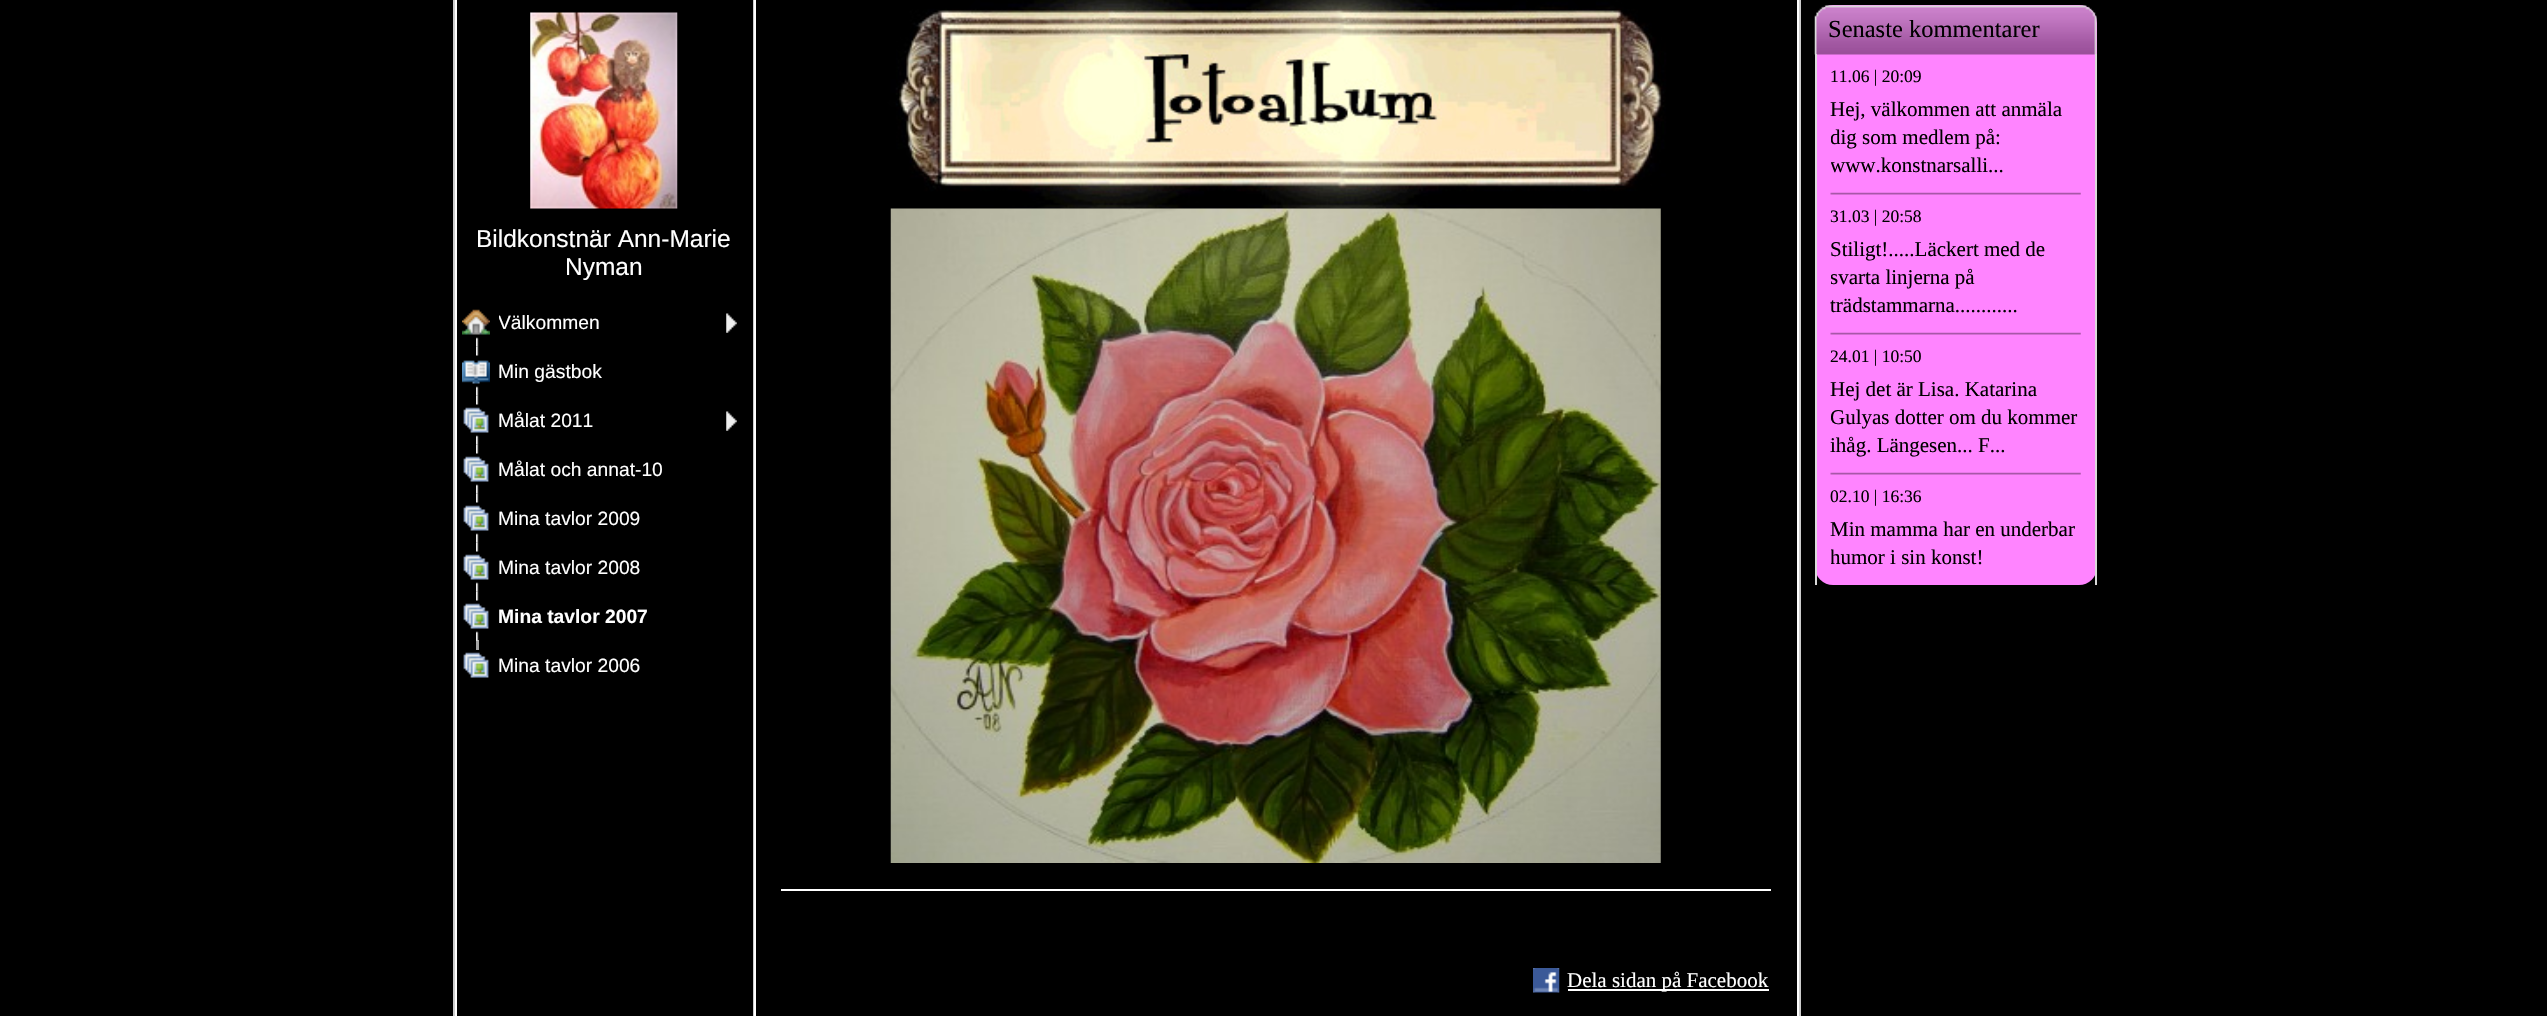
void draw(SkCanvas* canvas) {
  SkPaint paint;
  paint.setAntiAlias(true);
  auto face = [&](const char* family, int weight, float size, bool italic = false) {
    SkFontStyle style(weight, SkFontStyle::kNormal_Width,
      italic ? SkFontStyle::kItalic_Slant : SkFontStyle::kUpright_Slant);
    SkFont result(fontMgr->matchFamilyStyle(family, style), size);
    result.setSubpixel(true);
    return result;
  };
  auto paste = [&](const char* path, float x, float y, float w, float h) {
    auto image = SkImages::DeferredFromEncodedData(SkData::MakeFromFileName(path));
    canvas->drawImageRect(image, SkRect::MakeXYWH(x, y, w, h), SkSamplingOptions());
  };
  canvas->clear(0xff000000);
  paint.setColor(0xffffffff);
  canvas->drawRect(SkRect::MakeXYWH(455, 0, 2, 1016), paint);
  paint.setColor(0xffcccccc);
  canvas->drawRect(SkRect::MakeXYWH(453, 0, 2, 1016), paint);
  paste("img/1.png", 530, 12, 148, 197);
  paste("img/2.png", 476, 337, 3, 10);
  paste("img/3.png", 462, 309, 28, 26);
  paste("img/4.png", 726, 313, 11, 20);
  paste("img/5.png", 476, 346, 3, 50);
  paste("img/6.png", 462, 360, 28, 24);
  paste("img/5.png", 476, 395, 3, 50);
  paste("img/7.png", 463, 407, 26, 26);
  paste("img/4.png", 726, 411, 11, 20);
  paste("img/5.png", 476, 444, 3, 50);
  paste("img/7.png", 463, 456, 26, 26);
  paste("img/5.png", 476, 493, 3, 50);
  paste("img/7.png", 463, 505, 26, 26);
  paste("img/5.png", 476, 542, 3, 50);
  paste("img/7.png", 463, 554, 26, 26);
  paste("img/5.png", 476, 591, 3, 50);
  paste("img/7.png", 463, 603, 26, 26);
  paint.setColor(0xb0efefef);
  canvas->drawRect(SkRect::MakeXYWH(476, 640, 3, 10), paint);
  paste("img/7.png", 463, 652, 26, 26);
  {
    const struct { float x, y, w, h; SkColor color; } items[] = {
      {753, 0, 1, 1016, 0xffcccccc},
      {754, 0, 2, 1016, 0xffffffff},
      {1797, 0, 2, 1016, 0xffffffff},
      {1799, 0, 2, 1016, 0xffcccccc},
    };
    for (auto [x, y, w, h, color] : items) {
      paint.setColor(color);
      canvas->drawRect(SkRect::MakeXYWH(x, y, w, h), paint);
    }
  }
  paste("img/8.png", 756, 0, 1041, 209);
  paste("img/9.png", 890, 208, 771, 655);
  paint.setColor(0xffffffff);
  canvas->drawRect(SkRect::MakeXYWH(781, 889, 990, 2), paint);
  paste("img/10.png", 1533, 968, 27, 25);
  canvas->drawRect(SkRect::MakeXYWH(1568, 989, 201, 2), paint);
  paint.setColor(0xffff84ff);
  canvas->drawRoundRect(SkRect::MakeXYWH(1815, 5, 282, 580), 18, 18, paint);
  paste("img/11.png", 1814, 5, 283, 50);
  paint.setColor(0xffdadada);
  canvas->drawRect(SkRect::MakeXYWH(2095, 54, 2, 531), paint);
  canvas->drawRect(SkRect::MakeXYWH(1815, 54, 2, 531), paint);
  paste("img/12.png", 1830, 192, 251, 3);
  paste("img/12.png", 1830, 332, 251, 3);
  paste("img/12.png", 1830, 472, 251, 3);
  auto f0 = face("Liberation Sans", 400, 24.5f);
  paint.setColor(0xffffffff);
  canvas->drawString("Bildkonstnär Ann-Marie", 476, 247, f0, paint);
  canvas->drawString("Nyman", 565, 275, f0, paint);
  canvas->save();
  canvas->clipRect(SkRect::MakeXYWH(499, 310, 220, 24));
  auto f1 = face("Liberation Sans", 400, 19.25f);
  canvas->drawString("Välkommen", 498, 329, f1, paint);
  canvas->restore();
  {
    const struct { const char* s; float x, y; } items[] = {
      {"Min gästbok", 498, 378},
      {"Målat 2011", 498, 427},
      {"Målat och annat-10", 498, 476},
      {"Mina tavlor 2009", 498, 525},
      {"Mina tavlor 2008", 498, 574},
    };
    for (auto [s, x, y] : items) {
      canvas->drawString(s, x, y, f1, paint);
    }
  }
  auto f2 = face("Liberation Sans", 700, 19.25f);
  canvas->drawString("Mina tavlor 2007", 498, 623, f2, paint);
  canvas->drawString("Mina tavlor 2006", 498, 672, f1, paint);
  auto f3 = face("Liberation Serif", 400, 21);
  canvas->drawString("Dela sidan på Facebook", 1567, 987, f3, paint);
  auto f4 = face("Liberation Serif", 400, 24.5f);
  paint.setColor(0xff000000);
  canvas->drawString("Senaste kommentarer", 1828, 37, f4, paint);
  auto f5 = face("Liberation Serif", 400, 17.5f);
  canvas->drawString("11.06 | 20:09", 1830, 82, f5, paint);
  canvas->drawString("Hej, välkommen att anmäla", 1830, 116, f3, paint);
  canvas->save();
  canvas->clipRect(SkRect::MakeXYWH(1831, 95, 250, 84));
  canvas->drawString("dig som medlem på:", 1830, 144, f3, paint);
  canvas->drawString("www.konstnarsalli...", 1830, 172, f3, paint);
  canvas->restore();
  canvas->drawString("31.03 | 20:58", 1830, 222, f5, paint);
  canvas->drawString("Stiligt!.....Läckert med de", 1830, 256, f3, paint);
  canvas->save();
  canvas->clipRect(SkRect::MakeXYWH(1831, 235, 250, 84));
  canvas->drawString("svarta linjerna på", 1830, 284, f3, paint);
  canvas->restore();
  canvas->drawString("trädstammarna............", 1830, 312, f3, paint);
  canvas->drawString("24.01 | 10:50", 1830, 362, f5, paint);
  canvas->drawString("Hej det är Lisa. Katarina", 1830, 396, f3, paint);
  canvas->save();
  canvas->clipRect(SkRect::MakeXYWH(1831, 375, 250, 84));
  canvas->drawString("Gulyas dotter om du kommer", 1830, 424, f3, paint);
  canvas->restore();
  canvas->drawString("ihåg. Längesen... F...", 1830, 452, f3, paint);
  canvas->drawString("02.10 | 16:36", 1830, 502, f5, paint);
  canvas->drawString("Min mamma har en underbar", 1830, 536, f3, paint);
  canvas->save();
  canvas->clipRect(SkRect::MakeXYWH(1831, 515, 250, 56));
  canvas->drawString("humor i sin konst!", 1830, 564, f3, paint);
  canvas->restore();
}
